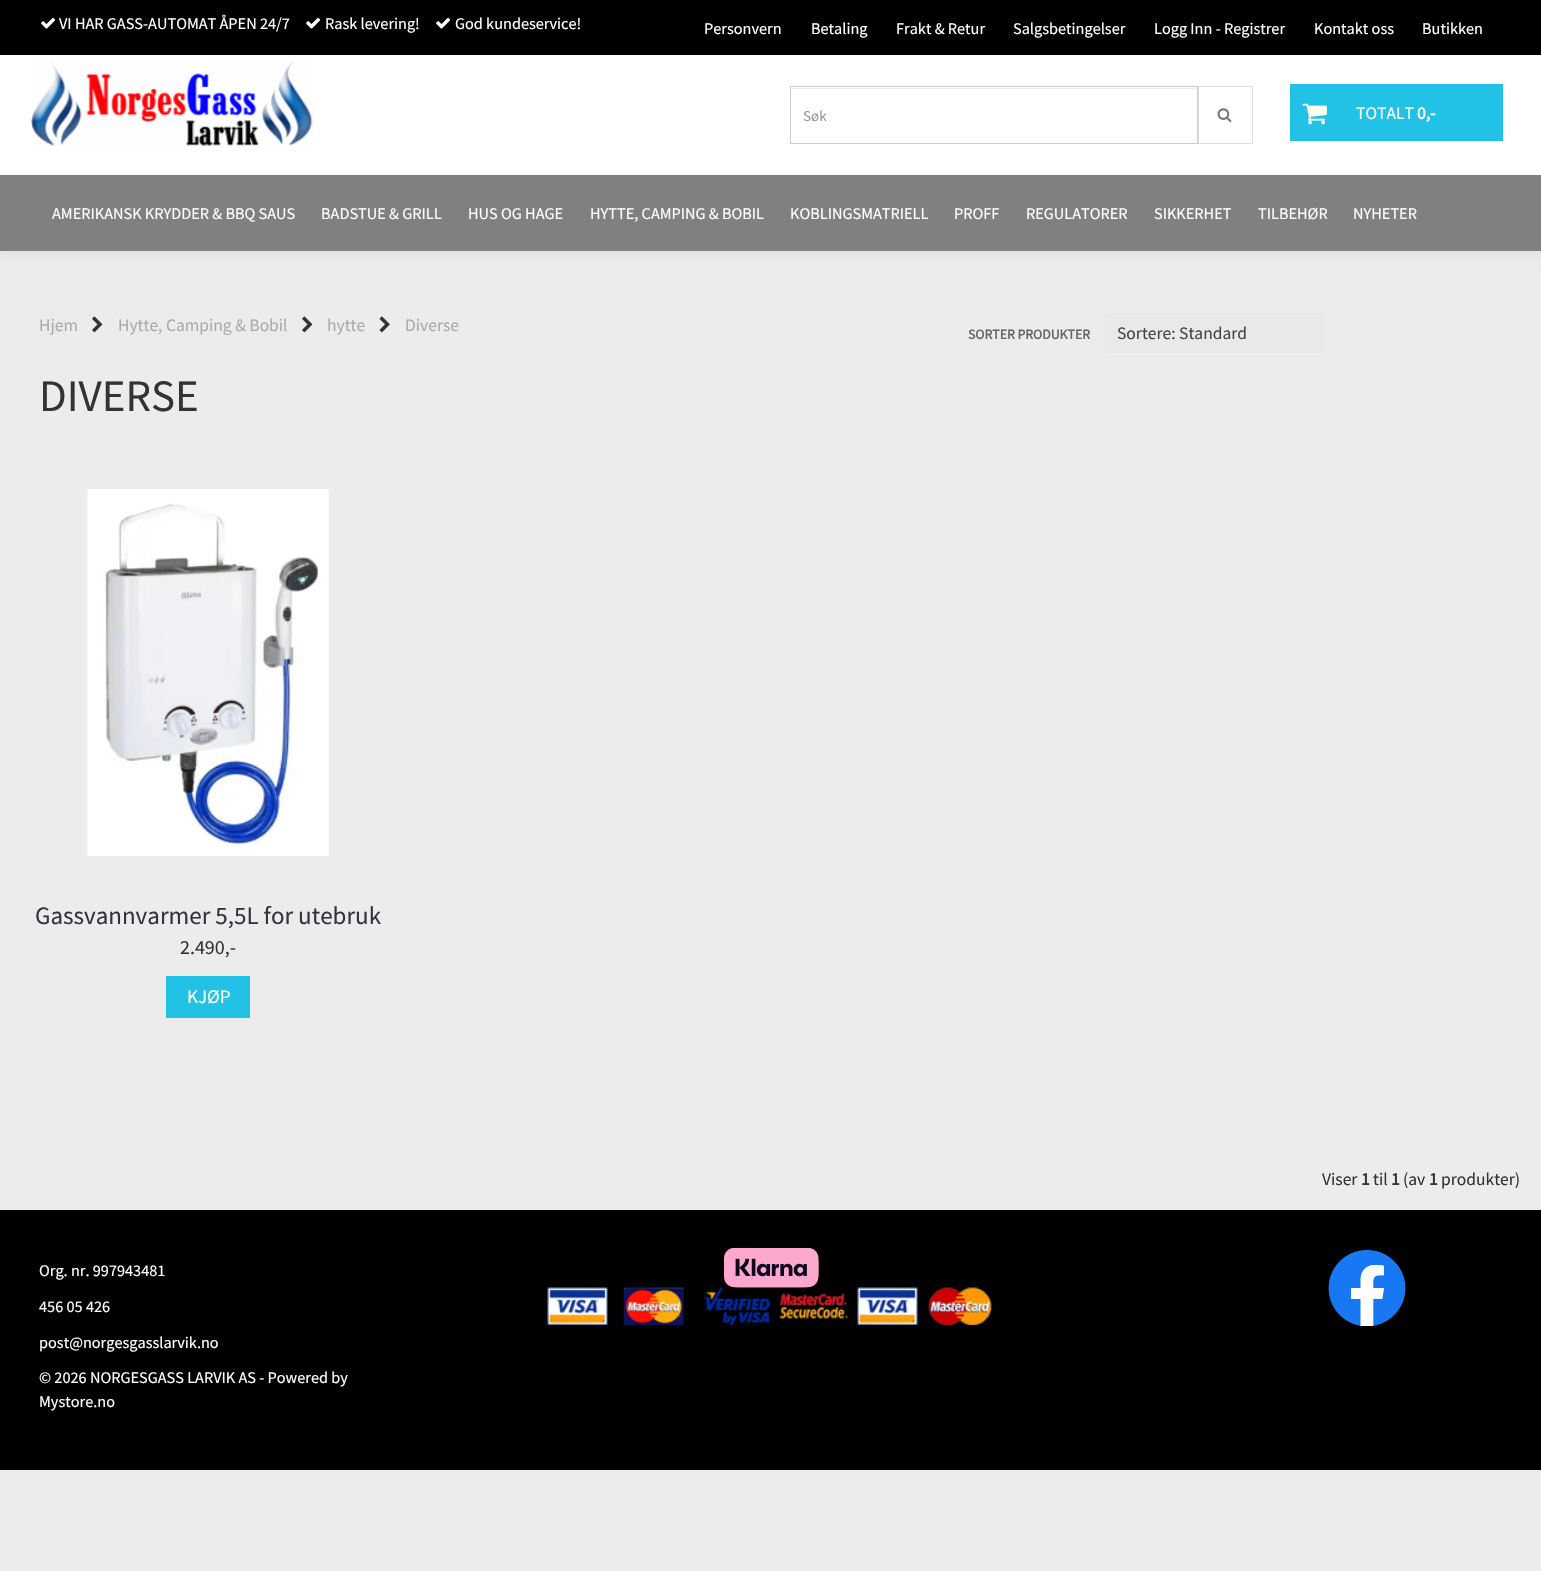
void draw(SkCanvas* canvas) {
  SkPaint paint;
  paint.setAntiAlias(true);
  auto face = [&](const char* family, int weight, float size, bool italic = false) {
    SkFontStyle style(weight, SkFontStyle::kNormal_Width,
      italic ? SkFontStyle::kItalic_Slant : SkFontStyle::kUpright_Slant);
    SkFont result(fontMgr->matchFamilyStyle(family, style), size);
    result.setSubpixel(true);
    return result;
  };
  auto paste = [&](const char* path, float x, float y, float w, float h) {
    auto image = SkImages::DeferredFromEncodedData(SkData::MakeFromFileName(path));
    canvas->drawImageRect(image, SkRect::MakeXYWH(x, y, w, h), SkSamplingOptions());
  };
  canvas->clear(0xffececec);
  paint.setColor(0x1a000000);
  paint.setMaskFilter(SkMaskFilter::MakeBlur(kNormal_SkBlurStyle, 7));
  canvas->drawRect(SkRect::MakeXYWH(-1, -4, 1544, 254), paint);
  paint.setMaskFilter(nullptr);
  paint.setColor(0xffffffff);
  canvas->drawRect(SkRect::MakeXYWH(0, 55, 1541, 120), paint);
  paint.setColor(0xff000000);
  canvas->drawRect(SkRect::MakeXYWH(0, 0, 1541, 55), paint);
  paste("img/1.png", 41, 17, 15, 12);
  paste("img/1.png", 306, 17, 15, 12);
  paste("img/1.png", 436, 17, 15, 12);
  paste("img/2.png", 31, 61, 282, 86);
  paint.setColor(0xffececec);
  canvas->drawRect(SkRect::MakeXYWH(791, 88, 405, 1), paint);
  paint.setStroke(true);
  paint.setStrokeWidth(1);
  paint.setColor(0xffcccccc);
  canvas->drawRect(SkRect::MakeXYWH(790.5f, 86.5f, 407, 57), paint);
  paint.setColor(0xffdedede);
  canvas->drawRect(SkRect::MakeXYWH(1198.5f, 86.5f, 54, 57), paint);
  paste("img/3.png", 1217, 108, 15, 15);
  paint.setStroke(false);
  paint.setColor(0xff22c1e6);
  canvas->drawRect(SkRect::MakeXYWH(1290, 84, 213, 57), paint);
  paste("img/4.png", 1302, 103, 25, 22);
  paint.setColor(0xff808080);
  canvas->drawRect(SkRect::MakeXYWH(0, 175, 1541, 76), paint);
  paste("img/5.png", 92, 316, 11, 17);
  paste("img/5.png", 302, 316, 11, 17);
  paste("img/6.png", 379, 316, 11, 17);
  paint.setColor(0xffe9e9e9);
  canvas->drawRect(SkRect::MakeXYWH(1105, 313, 219, 40), paint);
  paste("img/7.png", 87, 489, 242, 367);
  paint.setColor(0xff22c1e6);
  canvas->drawRect(SkRect::MakeXYWH(166, 976, 84, 42), paint);
  paint.setColor(0xff000000);
  canvas->drawRect(SkRect::MakeXYWH(0, 1210, 1541, 260), paint);
  paste("img/8.png", 724, 1248, 95, 40);
  paste("img/9.png", 547, 1287, 61, 38);
  paste("img/10.png", 623, 1287, 61, 38);
  paste("img/11.png", 703, 1287, 289, 38);
  paste("img/12.png", 1328, 1250, 78, 76);
  auto f0 = face("Source Sans Pro", 400, 16.25f);
  paint.setColor(0xffffffff);
  {
    const struct { const char* s; float x, y; } items[] = {
      {"VI HAR GASS-AUTOMAT ÅPEN 24/7", 59, 29},
      {"Rask levering!", 325, 29},
      {"God kundeservice!", 455, 29},
      {"Personvern", 704, 34},
      {"Betaling", 811, 34},
      {"Frakt & Retur", 896, 34},
      {"Salgsbetingelser", 1013, 34},
      {"Logg Inn - Registrer", 1154, 34},
      {"Kontakt oss", 1314, 34},
      {"Butikken", 1422, 34},
    };
    for (auto [s, x, y] : items) {
      canvas->drawString(s, x, y, f0, paint);
    }
  }
  auto f1 = face("Source Sans Pro", 400, 15);
  paint.setColor(0xff999999);
  canvas->drawString("Søk", 803, 121, f1, paint);
  auto f2 = face("Source Sans Pro", 400, 17.5f);
  paint.setColor(0xffffffee);
  canvas->drawString("TOTALT", 1356, 119, f2, paint);
  auto f3 = face("Source Sans Pro", 700, 17.5f);
  canvas->drawString("0,-", 1417, 119, f3, paint);
  paint.setColor(0xffffffff);
  {
    const struct { const char* s; float x, y; } items[] = {
      {"AMERIKANSK KRYDDER & BBQ SAUS", 52, 219},
      {"BADSTUE & GRILL", 321, 219},
      {"HUS OG HAGE", 468, 219},
      {"HYTTE, CAMPING & BOBIL", 590, 219},
      {"KOBLINGSMATRIELL", 790, 219},
      {"PROFF", 954, 219},
      {"REGULATORER", 1026, 219},
      {"SIKKERHET", 1154, 219},
      {"TILBEHØR", 1258, 219},
      {"NYHETER", 1353, 219},
    };
    for (auto [s, x, y] : items) {
      canvas->drawString(s, x, y, f0, paint);
    }
  }
  paint.setColor(0xffaaaaaa);
  {
    const struct { const char* s; float x, y; } items[] = {
      {"Hjem", 39, 331},
      {"Hytte, Camping & Bobil", 118, 331},
      {"hytte", 327, 331},
      {"Diverse", 405, 331},
    };
    for (auto [s, x, y] : items) {
      canvas->drawString(s, x, y, f2, paint);
    }
  }
  auto f4 = face("Source Sans Pro", 700, 13.75f);
  paint.setColor(0xff666666);
  canvas->drawString("SORTER PRODUKTER", 968, 339, f4, paint);
  paint.setColor(0xff444444);
  canvas->drawString("Sortere: Standard", 1117, 339, f2, paint);
  auto f5 = face("Source Sans Pro", 400, 45);
  paint.setColor(0xff333333);
  canvas->drawString("DIVERSE", 39, 411, f5, paint);
  auto f6 = face("Source Sans Pro", 400, 25);
  paint.setColor(0xff363241);
  canvas->drawString("Gassvannvarmer 5,5L for utebruk", 35, 924, f6, paint);
  auto f7 = face("Source Sans Pro", 400, 20);
  paint.setColor(0xff333333);
  canvas->drawString("2.490,-", 180, 954, f7, paint);
  auto f8 = face("Source Sans Pro", 400, 19);
  paint.setColor(0xffffffee);
  canvas->drawString("KJØP", 187, 1003, f8, paint);
  paint.setColor(0xff333333);
  canvas->drawString("Viser", 1322, 1185, f2, paint);
  canvas->drawString("1", 1361, 1185, f3, paint);
  canvas->drawString("til", 1373, 1185, f2, paint);
  canvas->drawString("1", 1391, 1185, f3, paint);
  canvas->drawString("(av", 1403, 1185, f2, paint);
  canvas->drawString("1", 1429, 1185, f3, paint);
  canvas->drawString("produkter)", 1441, 1185, f2, paint);
  paint.setColor(0xffffffff);
  {
    const struct { const char* s; float x, y; } items[] = {
      {"Org. nr. 997943481", 39, 1276},
      {"456 05 426", 39, 1312},
      {"post@norgesgasslarvik.no", 39, 1348},
      {"© 2026 NORGESGASS LARVIK AS - Powered by", 39, 1383},
      {"Mystore.no", 39, 1407},
    };
    for (auto [s, x, y] : items) {
      canvas->drawString(s, x, y, f0, paint);
    }
  }
}
